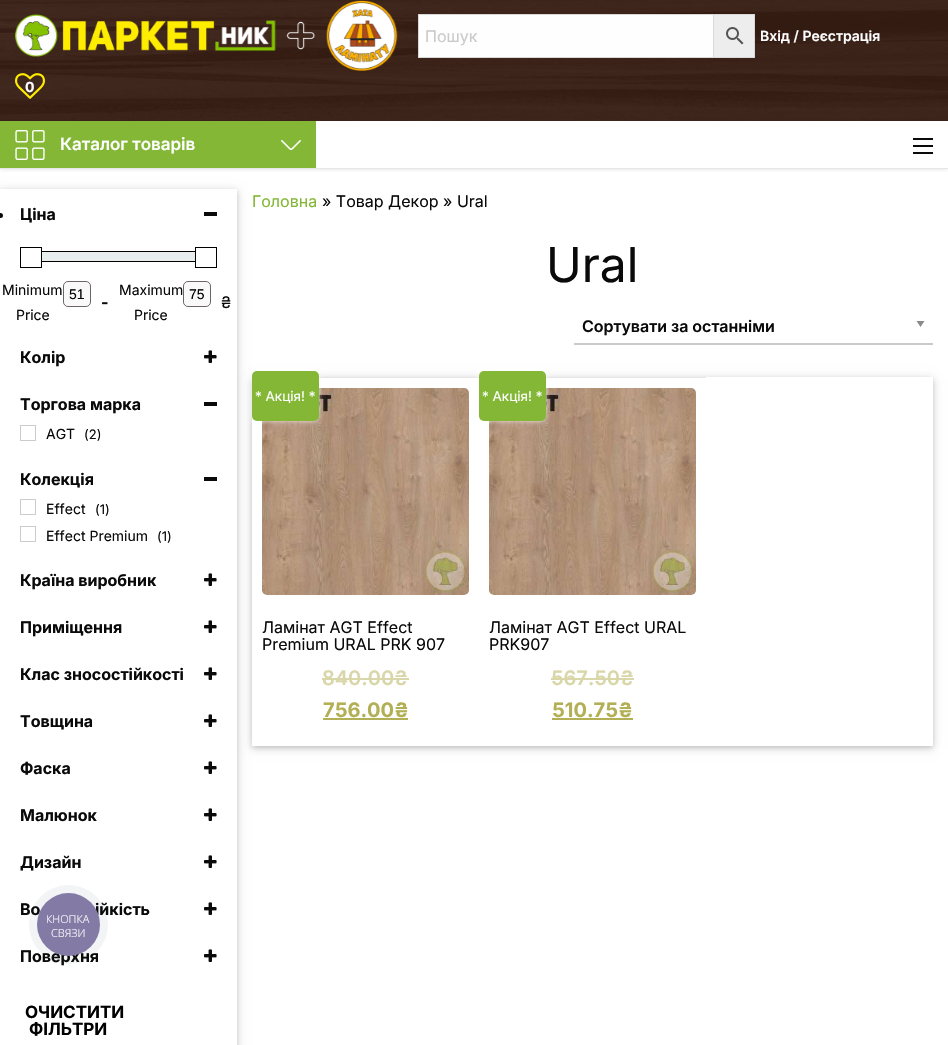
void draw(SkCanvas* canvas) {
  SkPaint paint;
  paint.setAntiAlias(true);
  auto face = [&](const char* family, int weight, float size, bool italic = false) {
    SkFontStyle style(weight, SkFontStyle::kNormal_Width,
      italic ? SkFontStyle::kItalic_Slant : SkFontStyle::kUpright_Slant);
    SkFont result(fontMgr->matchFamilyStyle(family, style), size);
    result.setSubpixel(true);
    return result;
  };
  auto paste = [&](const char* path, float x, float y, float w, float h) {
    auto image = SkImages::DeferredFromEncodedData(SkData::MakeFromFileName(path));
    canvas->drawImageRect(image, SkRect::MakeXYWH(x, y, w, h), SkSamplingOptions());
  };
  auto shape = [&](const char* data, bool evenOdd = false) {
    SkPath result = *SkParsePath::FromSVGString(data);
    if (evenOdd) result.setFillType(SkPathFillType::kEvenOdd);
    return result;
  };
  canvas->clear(0xffffffff);
  canvas->save();
  canvas->clipRect(SkRect::MakeXYWH(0, 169, 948, 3));
  paint.setColor(0x26323232);
  paint.setMaskFilter(SkMaskFilter::MakeBlur(kNormal_SkBlurStyle, 2.5f));
  canvas->drawRect(SkRect::MakeXYWH(0, 121, 948, 48), paint);
  paint.setMaskFilter(nullptr);
  canvas->restore();
  paste("img/1.png", 0, 0, 948, 121);
  paste("img/2.png", 15, 0, 383, 71);
  paint.setColor(0xffededed);
  canvas->drawRect(SkRect::MakeXYWH(713.5f, 14.5f, 41, 43), paint);
  paint.setStroke(true);
  paint.setStrokeWidth(1);
  paint.setColor(0xffd8d8d8);
  canvas->drawRect(SkRect::MakeXYWH(713.5f, 14.5f, 41, 43), paint);
  paint.setStroke(false);
  paint.setColor(0xfffefefe);
  canvas->drawRect(SkRect::MakeXYWH(418.5f, 14.5f, 295, 43), paint);
  paint.setStroke(true);
  paint.setColor(0xffd8d8d8);
  canvas->drawRect(SkRect::MakeXYWH(418.5f, 14.5f, 295, 43), paint);
  paste("img/3.png", 726, 27, 18, 18);
  paste("img/4.png", 15, 73, 30, 26);
  paint.setStroke(false);
  paint.setColor(0xffe6e6e6);
  canvas->drawRect(SkRect::MakeXYWH(0, 168, 948, 1), paint);
  paint.setColor(0xff83b735);
  canvas->drawRect(SkRect::MakeXYWH(0, 121, 316, 47), paint);
  paste("img/5.png", 15, 130, 30, 30);
  paste("img/6.png", 281, 140, 20, 10);
  {
    const struct { float x, y, w, h; SkColor color; } items[] = {
      {913, 152, 20, 2, 0xff0a0a0a},
      {913, 145, 20, 2, 0xff0a0a0a},
      {913, 138, 20, 2, 0xff0a0a0a},
    };
    for (auto [x, y, w, h, color] : items) {
      paint.setColor(color);
      canvas->drawRect(SkRect::MakeXYWH(x, y, w, h), paint);
    }
  }
  canvas->save();
  canvas->clipPath(shape("M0 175H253V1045H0ZM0 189H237V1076H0Z", true), true);
  paint.setColor(0x1f000000);
  paint.setMaskFilter(SkMaskFilter::MakeBlur(kNormal_SkBlurStyle, 5));
  canvas->drawRect(SkRect::MakeXYWH(0, 191, 237, 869), paint);
  paint.setMaskFilter(nullptr);
  canvas->restore();
  canvas->save();
  canvas->clipPath(shape("M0 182H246V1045H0ZM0 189H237V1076H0Z", true), true);
  paint.setColor(0x29000000);
  paint.setMaskFilter(SkMaskFilter::MakeBlur(kNormal_SkBlurStyle, 2.5f));
  canvas->drawRect(SkRect::MakeXYWH(0, 191, 237, 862), paint);
  paint.setMaskFilter(nullptr);
  canvas->restore();
  paint.setColor(0xff0a0a0a);
  canvas->drawCircle(0.5f, 215.5f, 2.5f, paint);
  canvas->drawRect(SkRect::MakeXYWH(204, 212, 13, 4), paint);
  paint.setStroke(true);
  paint.setColor(0xff000000);
  canvas->drawRect(SkRect::MakeXYWH(30.5f, 251.5f, 176, 10), paint);
  paint.setStroke(false);
  paint.setColor(0xffffffff);
  canvas->drawRect(SkRect::MakeXYWH(30, 251, 11, 11), paint);
  paint.setStroke(true);
  paint.setColor(0xff000000);
  canvas->drawRect(SkRect::MakeXYWH(20.5f, 247.5f, 21, 20), paint);
  paint.setStroke(false);
  paint.setColor(0xffe8eded);
  canvas->drawRect(SkRect::MakeXYWH(42, 252, 153, 9), paint);
  paint.setColor(0xffffffff);
  canvas->drawRect(SkRect::MakeXYWH(196, 251, 11, 11), paint);
  paint.setStroke(true);
  paint.setColor(0xff000000);
  canvas->drawRect(SkRect::MakeXYWH(195.5f, 247.5f, 21, 20), paint);
  paint.setStroke(false);
  paint.setColor(0xfff9f9f9);
  canvas->drawRoundRect(SkRect::MakeXYWH(63.5f, 281.5f, 27, 25), 4.5f, 4.5f, paint);
  paint.setStroke(true);
  paint.setColor(0xff6e6666);
  canvas->drawRoundRect(SkRect::MakeXYWH(63.5f, 281.5f, 27, 25), 4.5f, 4.5f, paint);
  paint.setStroke(false);
  paint.setColor(0xfff9f9f9);
  canvas->drawRoundRect(SkRect::MakeXYWH(183.5f, 281.5f, 27, 25), 4.5f, 4.5f, paint);
  paint.setStroke(true);
  paint.setColor(0xff6e6666);
  canvas->drawRoundRect(SkRect::MakeXYWH(183.5f, 281.5f, 27, 25), 4.5f, 4.5f, paint);
  paste("img/7.png", 204, 350, 13, 13);
  paint.setStroke(false);
  paint.setColor(0xff0a0a0a);
  canvas->drawRect(SkRect::MakeXYWH(204, 402, 13, 4), paint);
  paint.setStroke(true);
  paint.setColor(0xffcccccc);
  canvas->drawRect(SkRect::MakeXYWH(20.5f, 425.5f, 15, 15), paint);
  paint.setStroke(false);
  paint.setColor(0xff0a0a0a);
  canvas->drawRect(SkRect::MakeXYWH(204, 477, 13, 4), paint);
  paint.setStroke(true);
  paint.setColor(0xffcccccc);
  canvas->drawRect(SkRect::MakeXYWH(20.5f, 499.5f, 15, 15), paint);
  canvas->drawRect(SkRect::MakeXYWH(20.5f, 526.5f, 15, 15), paint);
  paste("img/7.png", 204, 573, 13, 13);
  paste("img/7.png", 204, 620, 13, 13);
  paste("img/7.png", 204, 667, 13, 13);
  paste("img/7.png", 204, 714, 13, 13);
  paste("img/7.png", 204, 761, 13, 13);
  paste("img/7.png", 204, 808, 13, 13);
  paste("img/7.png", 204, 855, 13, 13);
  paste("img/7.png", 204, 902, 13, 13);
  paste("img/7.png", 204, 949, 13, 13);
  paint.setStroke(false);
  paint.setColor(0xff8a8a8a);
  canvas->drawPath(shape("M916.5 321H924.5L920.5 327Z"), paint);
  paint.setColor(0xffcacaca);
  canvas->drawRect(SkRect::MakeXYWH(574, 343, 359, 2), paint);
  canvas->save();
  canvas->clipPath(shape("M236 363H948V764H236ZM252 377H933V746H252Z", true), true);
  paint.setColor(0x1f000000);
  paint.setMaskFilter(SkMaskFilter::MakeBlur(kNormal_SkBlurStyle, 5));
  canvas->drawRect(SkRect::MakeXYWH(252, 379, 681, 369), paint);
  paint.setMaskFilter(nullptr);
  canvas->restore();
  canvas->save();
  canvas->clipPath(shape("M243 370H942V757H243ZM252 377H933V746H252Z", true), true);
  paint.setColor(0x29000000);
  paint.setMaskFilter(SkMaskFilter::MakeBlur(kNormal_SkBlurStyle, 2.5f));
  canvas->drawRect(SkRect::MakeXYWH(252, 379, 681, 369), paint);
  paint.setMaskFilter(nullptr);
  canvas->restore();
  paint.setColor(0xffe6e6e6);
  canvas->drawRect(SkRect::MakeXYWH(319, 377, 160, 1), paint);
  paste("img/8.png", 262, 388, 207, 207);
  paint.setColor(0xccffffff);
  paint.setMaskFilter(SkMaskFilter::MakeBlur(kNormal_SkBlurStyle, 2.5f));
  canvas->drawRoundRect(SkRect::MakeXYWH(252, 371, 67, 50), 5, 5, paint);
  paint.setMaskFilter(nullptr);
  paint.setColor(0xff83b735);
  canvas->drawRoundRect(SkRect::MakeXYWH(252, 371, 67, 50), 5, 5, paint);
  {
    const struct { float x, y, w, h; SkColor color; } items[] = {
      {322, 678, 87, 2, 0xffd9d7aa},
      {323, 718, 85, 2, 0xffb3af54},
      {546, 377, 160, 1, 0xffe6e6e6},
    };
    for (auto [x, y, w, h, color] : items) {
      paint.setColor(color);
      canvas->drawRect(SkRect::MakeXYWH(x, y, w, h), paint);
    }
  }
  paste("img/9.png", 489, 388, 207, 207);
  paint.setColor(0xccffffff);
  paint.setMaskFilter(SkMaskFilter::MakeBlur(kNormal_SkBlurStyle, 2.5f));
  canvas->drawRoundRect(SkRect::MakeXYWH(479, 371, 67, 50), 5, 5, paint);
  paint.setMaskFilter(nullptr);
  paint.setColor(0xff83b735);
  canvas->drawRoundRect(SkRect::MakeXYWH(479, 371, 67, 50), 5, 5, paint);
  paint.setColor(0xffd9d7aa);
  canvas->drawRect(SkRect::MakeXYWH(551, 678, 83, 2), paint);
  paint.setColor(0xffb3af54);
  canvas->drawRect(SkRect::MakeXYWH(552, 718, 81, 2), paint);
  paint.setColor(0x0f2a405d);
  canvas->drawCircle(68.5f, 924.5f, 39.5f, paint);
  auto f0 = face("Inter", 400, 16);
  paint.setColor(0xffcacaca);
  canvas->drawString("Пошук", 425, 42, f0, paint);
  auto f1 = face("Inter", 600, 14);
  paint.setColor(0xfffefefe);
  canvas->drawString("Вхід / Реєстрація", 760, 41, f1, paint);
  auto f2 = face("Inter", 700, 14);
  canvas->drawString("0", 25, 92, f2, paint);
  auto f3 = face("Inter", 600, 17);
  canvas->drawString("Каталог товарів", 60, 150, f3, paint);
  auto f4 = face("Inter", 700, 16);
  paint.setColor(0xff0a0a0a);
  canvas->drawString("Ціна", 20, 220, f4, paint);
  auto f5 = face("Inter", 400, 14);
  canvas->drawString("Minimum", 2, 295, f5, paint);
  canvas->drawString("Price", 16, 320, f5, paint);
  auto f6 = face("Liberation Sans", 400, 14);
  paint.setColor(0xff000000);
  canvas->drawString("51", 69, 299, f6, paint);
  paint.setColor(0xff0a0a0a);
  canvas->drawString("Maximum", 119, 295, f5, paint);
  canvas->drawString("Price", 134, 320, f5, paint);
  paint.setColor(0xff000000);
  canvas->drawString("75", 189, 299, f6, paint);
  paint.setColor(0xff0a0a0a);
  canvas->drawString("-", 101, 308, f4, paint);
  canvas->drawString("₴", 221, 308, f0, paint);
  canvas->drawString("Колір", 20, 363, f4, paint);
  canvas->drawString("Торгова марка", 20, 410, f4, paint);
  canvas->drawString("AGT", 46, 439, f5, paint);
  auto f7 = face("Inter", 400, 13);
  canvas->drawString("(2)", 84, 439, f7, paint);
  canvas->drawString("Колекція", 20, 485, f4, paint);
  canvas->drawString("Effect", 46, 514, f5, paint);
  canvas->drawString("(1)", 95, 514, f7, paint);
  canvas->drawString("Effect Premium", 46, 541, f5, paint);
  canvas->drawString("(1)", 157, 541, f7, paint);
  {
    const struct { const char* s; float x, y; } items[] = {
      {"Країна виробник", 20, 586},
      {"Приміщення", 20, 633},
      {"Клас зносостійкості", 20, 680},
      {"Товщина", 20, 727},
      {"Фаска", 20, 774},
      {"Малюнок", 20, 821},
      {"Дизайн", 20, 868},
      {"Во", 20, 915},
      {"ійкість", 95, 915},
      {"Поверхня", 20, 962},
    };
    for (auto [s, x, y] : items) {
      canvas->drawString(s, x, y, f4, paint);
    }
  }
  auto f8 = face("Inter", 700, 17);
  paint.setColor(0xff000000);
  canvas->drawString("ОЧИСТИТИ", 25, 1018, f8, paint);
  canvas->drawString("ФІЛЬТРИ", 29, 1035, f8, paint);
  paint.setColor(0xff83b735);
  canvas->drawString("Головна", 252, 207, f0, paint);
  paint.setColor(0xff0a0a0a);
  canvas->drawString("» Товар Декор » Ural", 322, 207, f0, paint);
  auto f9 = face("Inter", 400, 48);
  canvas->drawString("Ural", 546, 282, f9, paint);
  auto f10 = face("Inter", 600, 16);
  canvas->drawString("Сортувати за останніми", 582, 332, f10, paint);
  auto f11 = face("Inter", 400, 13.5f);
  paint.setColor(0xfffefefe);
  canvas->drawString("* Акція! *", 255, 401, f11, paint);
  paint.setColor(0xff0a0a0a);
  canvas->drawString("Ламінат AGT Effect", 262, 633, f0, paint);
  canvas->drawString("Premium URAL PRK 907", 262, 650, f0, paint);
  auto f12 = face("Inter", 600, 20);
  paint.setColor(0xffd9d7aa);
  canvas->drawString("840.00₴", 322, 685, f12, paint);
  auto f13 = face("Inter", 700, 20);
  paint.setColor(0xffb3af54);
  canvas->drawString("756.00₴", 323, 717, f13, paint);
  paint.setColor(0xfffefefe);
  canvas->drawString("* Акція! *", 482, 401, f11, paint);
  paint.setColor(0xff0a0a0a);
  canvas->drawString("Ламінат AGT Effect URAL", 489, 633, f0, paint);
  canvas->drawString("PRK907", 489, 650, f0, paint);
  paint.setColor(0xffd9d7aa);
  canvas->drawString("567.50₴", 551, 685, f12, paint);
  paint.setColor(0xffb3af54);
  canvas->drawString("510.75₴", 552, 717, f13, paint);
  paint.setColor(0xff837ba6);
  canvas->drawCircle(68.5f, 924.5f, 31.5f, paint);
  auto f14 = face("Open Sans", 300, 11);
  paint.setColor(0xfffefefe);
  canvas->drawString("КНОПКА", 46, 923, f14, paint);
  canvas->drawString("СВЯЗИ", 51, 937, f14, paint);
}
